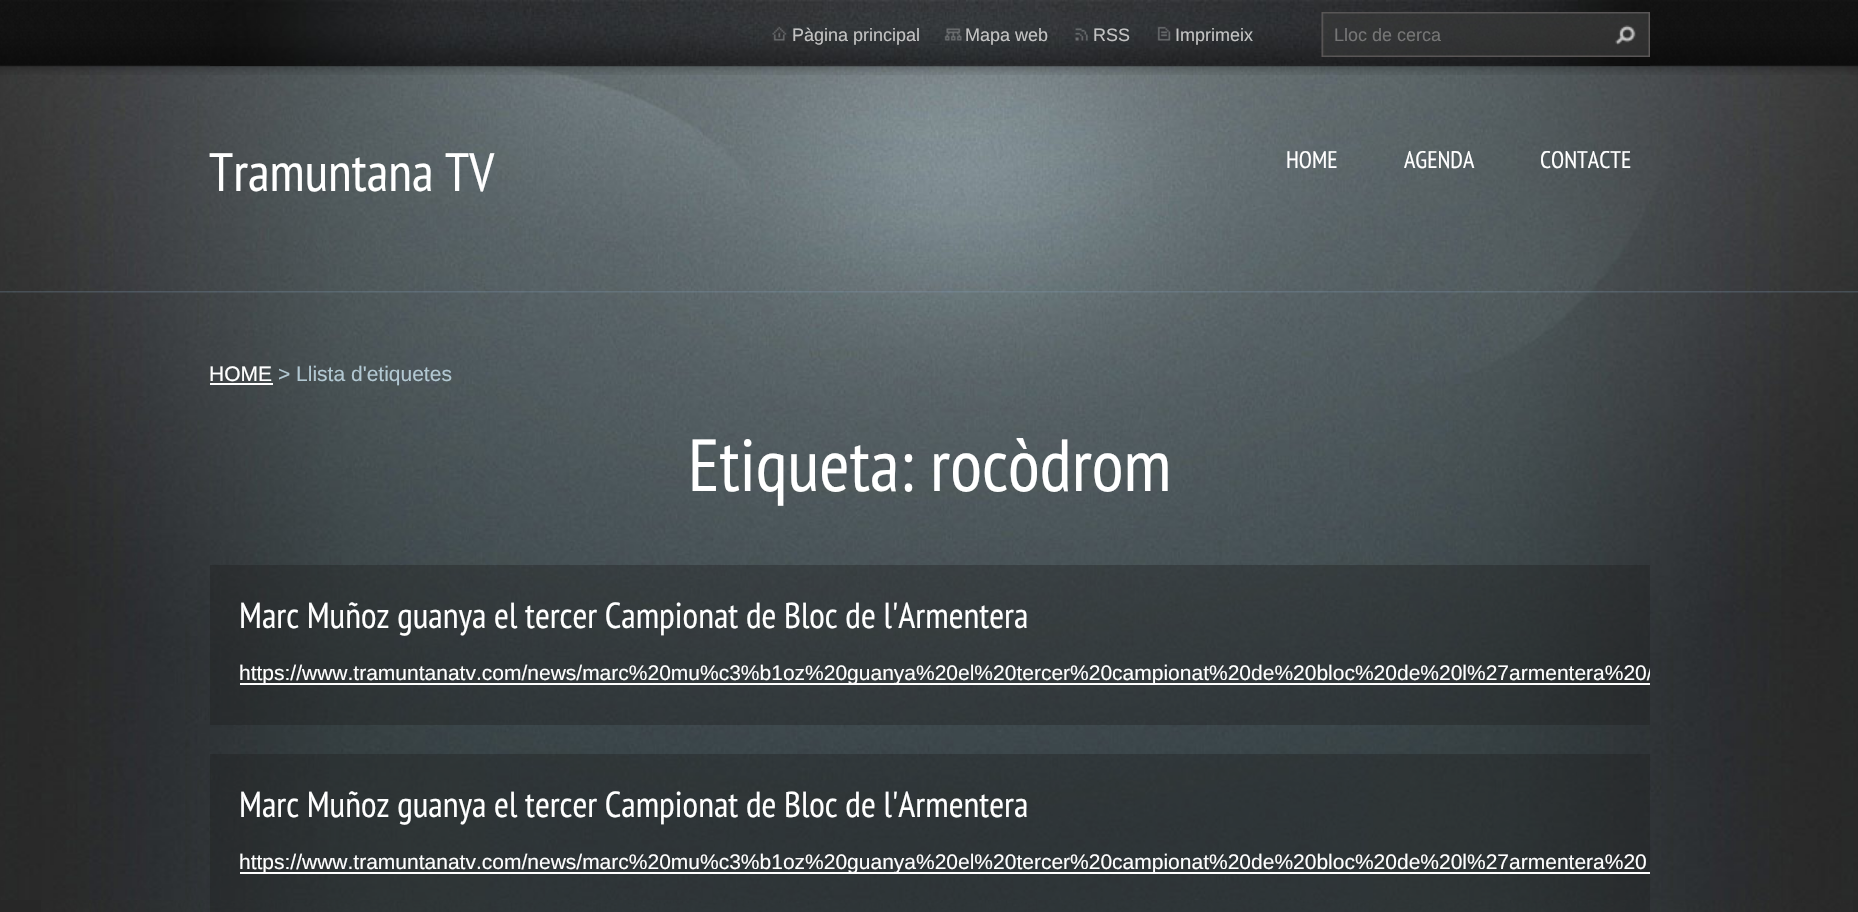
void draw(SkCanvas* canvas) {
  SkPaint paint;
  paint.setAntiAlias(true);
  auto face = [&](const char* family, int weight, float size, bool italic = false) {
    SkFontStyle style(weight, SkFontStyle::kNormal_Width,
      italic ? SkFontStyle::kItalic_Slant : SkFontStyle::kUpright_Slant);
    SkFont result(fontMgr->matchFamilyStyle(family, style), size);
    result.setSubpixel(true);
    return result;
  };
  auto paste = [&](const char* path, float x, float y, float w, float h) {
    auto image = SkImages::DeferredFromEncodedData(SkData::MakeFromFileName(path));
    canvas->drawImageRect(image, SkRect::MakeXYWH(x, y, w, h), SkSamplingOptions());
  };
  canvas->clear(0xff272727);
  paste("img/1.png", 41, 900, 1812, 12);
  paste("img/2.png", 0, 65, 1858, 835);
  paste("img/3.png", 0, 291, 1858, 2);
  paste("img/4.png", 0, 0, 1858, 75);
  paste("img/5.png", 210, 0, 1440, 66);
  paste("img/6.png", 772, 26, 15, 15);
  paste("img/7.png", 944, 28, 18, 13);
  paste("img/8.png", 1075, 28, 13, 13);
  paste("img/9.png", 1157, 26, 14, 15);
  paste("img/10.png", 1321, 12, 329, 45);
  paste("img/11.png", 1615, 25, 21, 20);
  {
    const struct { float x, y, w, h; SkColor color; } items[] = {
      {210, 383, 63, 2, 0xffffffff},
      {210, 565, 1440, 160, 0x5c1c1c1c},
      {240, 683, 1410, 2, 0xffffffff},
      {210, 754, 1440, 158, 0x5c1c1c1c},
      {240, 872, 1410, 2, 0xffffffff},
    };
    for (auto [x, y, w, h, color] : items) {
      paint.setColor(color);
      canvas->drawRect(SkRect::MakeXYWH(x, y, w, h), paint);
    }
  }
  auto f0 = face("Liberation Sans", 400, 18);
  paint.setColor(0xffc3c3c3);
  {
    const struct { const char* s; float x, y; } items[] = {
      {"Pàgina principal", 792, 41},
      {"Mapa web", 965, 41},
      {"RSS", 1093, 41},
      {"Imprimeix", 1175, 41},
    };
    for (auto [s, x, y] : items) {
      canvas->drawString(s, x, y, f0, paint);
    }
  }
  paint.setColor(0xff757575);
  canvas->drawString("Lloc de cerca", 1334, 41, f0, paint);
  auto f1 = face("PT Sans Narrow", 400, 54);
  paint.setColor(0xffffffff);
  canvas->drawString("Tramuntana TV", 209, 191, f1, paint);
  auto f2 = face("PT Sans Narrow", 400, 24);
  {
    const struct { const char* s; float x, y; } items[] = {
      {"HOME", 1286, 168},
      {"AGENDA", 1404, 168},
      {"CONTACTE", 1540, 168},
    };
    for (auto [s, x, y] : items) {
      canvas->drawString(s, x, y, f2, paint);
    }
  }
  auto f3 = face("Liberation Sans", 400, 21);
  canvas->drawString("HOME", 209, 381, f3, paint);
  paint.setColor(0xffb3c9d3);
  canvas->drawString("> Llista d'etiquetes", 278, 381, f3, paint);
  auto f4 = face("PT Sans Narrow", 400, 73.5f);
  paint.setColor(0xffffffff);
  canvas->drawString("Etiqueta: rocòdrom", 688, 491, f4, paint);
  auto f5 = face("PT Sans Narrow", 400, 36);
  canvas->drawString("Marc Muñoz guanya el tercer Campionat de Bloc de l'Armentera", 239, 628, f5, paint);
  canvas->save();
  canvas->clipRect(SkRect::MakeXYWH(210, 323, 1440, 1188));
  canvas->drawString("https://www.tramuntanatv.com/news/marc%20mu%c3%b1oz%20guanya%20el%20tercer%20campionat%20de%20bloc%20de%20l%27armentera%20/", 239, 680, f3, paint);
  canvas->restore();
  canvas->drawString("Marc Muñoz guanya el tercer Campionat de Bloc de l'Armentera", 239, 817, f5, paint);
  canvas->drawString("https://www.tramuntanatv.com/news/marc%20mu%c3%b1oz%20guanya%20el%20tercer%20campionat%20de%20bloc%20de%20l%27armentera%20", 239, 869, f3, paint);
}
